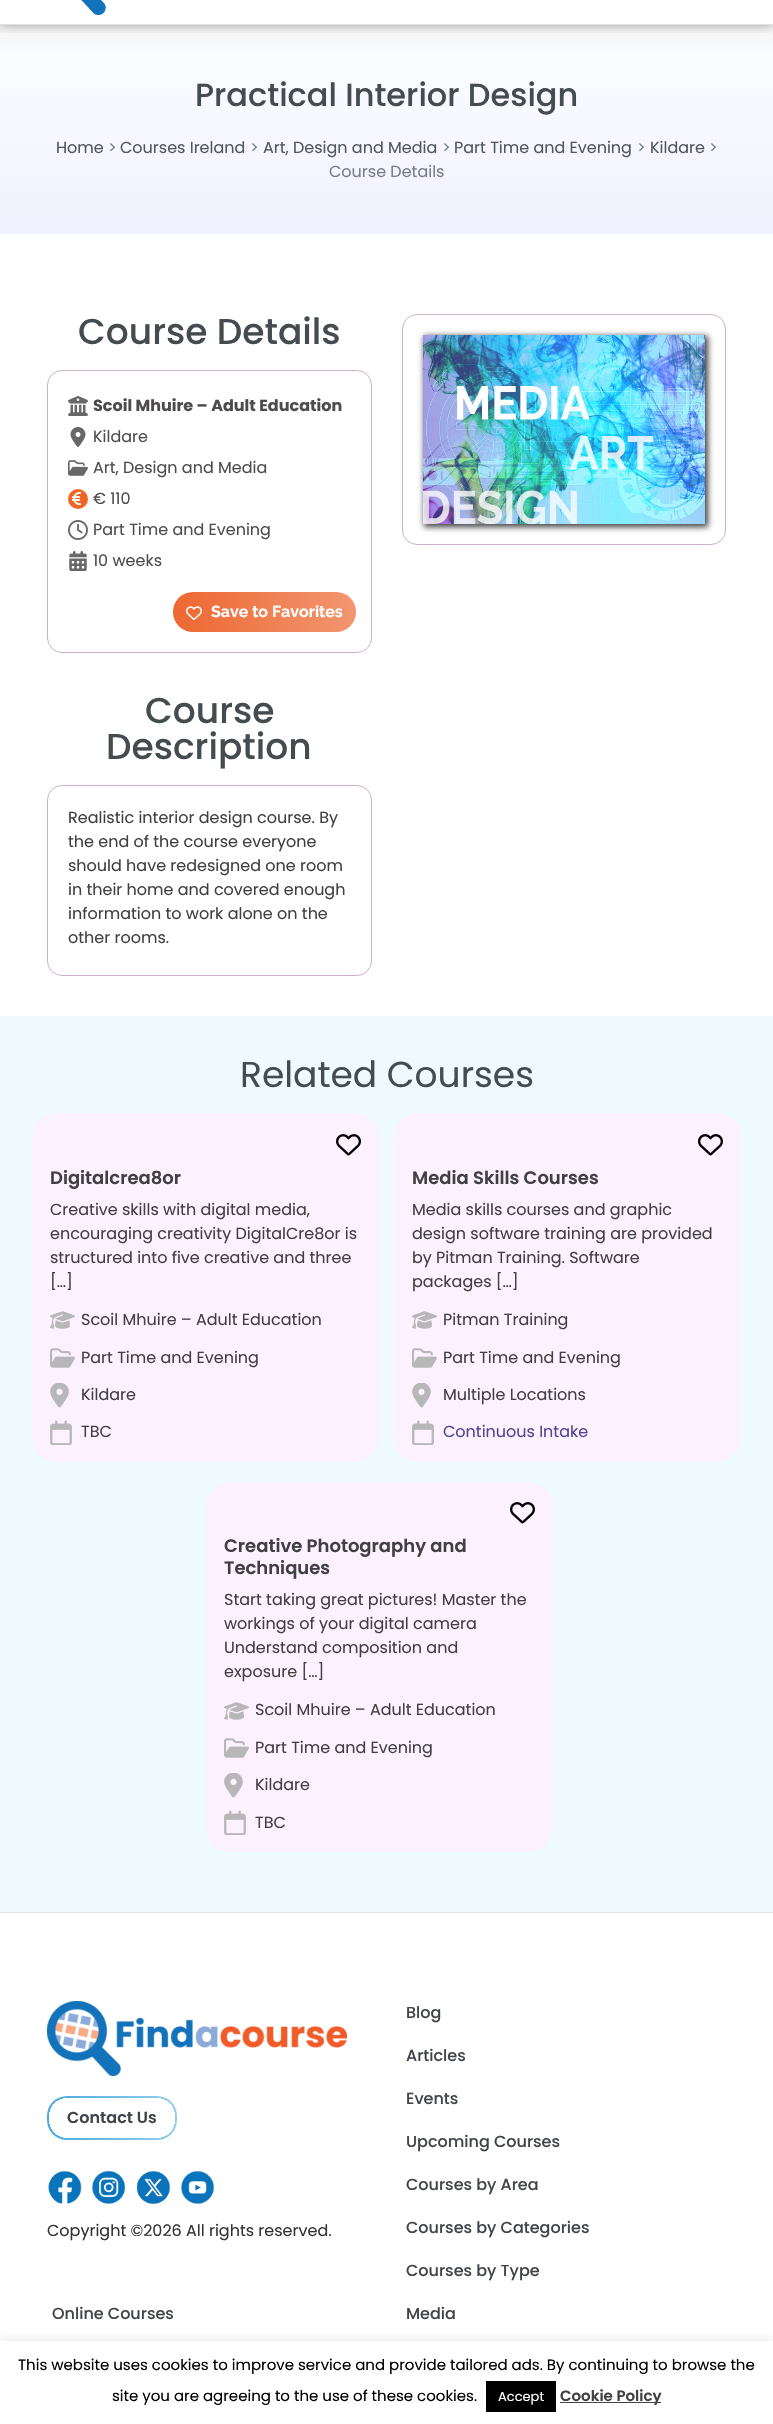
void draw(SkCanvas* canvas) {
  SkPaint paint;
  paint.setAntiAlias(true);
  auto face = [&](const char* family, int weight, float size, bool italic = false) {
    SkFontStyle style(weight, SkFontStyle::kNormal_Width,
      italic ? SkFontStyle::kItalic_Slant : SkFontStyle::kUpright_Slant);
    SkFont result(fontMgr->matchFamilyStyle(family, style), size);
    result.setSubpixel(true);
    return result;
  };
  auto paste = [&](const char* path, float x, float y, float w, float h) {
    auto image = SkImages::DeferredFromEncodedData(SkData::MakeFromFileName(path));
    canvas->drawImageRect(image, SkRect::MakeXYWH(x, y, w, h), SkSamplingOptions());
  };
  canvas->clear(0xffffffff);
  {
    const SkColor colors[] = {0xfff4f4f4, 0xfffbfcff, 0xfff0f1ff};
    const float stops[] = {0, 0.15f, 1};
    const SkPoint ends[] = {{387, 25}, {387, 234}};
    paint.setShader(SkGradientShader::MakeLinear(ends, colors, stops, 3, SkTileMode::kClamp));
    paint.setAlpha(255);
  }
  canvas->drawRect(SkRect::MakeXYWH(0, 25, 773, 209), paint);
  canvas->save();
  canvas->clipRect(SkRect::MakeXYWH(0, 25, 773, 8));
  paint.setShader(nullptr);
  paint.setColor(0x4d000000);
  paint.setMaskFilter(SkMaskFilter::MakeBlur(kNormal_SkBlurStyle, 5));
  canvas->drawRect(SkRect::MakeXYWH(0, -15, 773, 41), paint);
  paint.setMaskFilter(nullptr);
  canvas->restore();
  paint.setColor(0xffe0e0e0);
  canvas->drawRect(SkRect::MakeXYWH(0, 24, 773, 1), paint);
  paste("img/1.png", 81, 0, 25, 15);
  paint.setStroke(true);
  paint.setStrokeWidth(1);
  paint.setColor(0xffceaed1);
  canvas->drawRoundRect(SkRect::MakeXYWH(47.5f, 370.5f, 324, 282), 14.5f, 14.5f, paint);
  paste("img/2.png", 68, 396, 20, 20);
  paste("img/3.png", 70, 427, 16, 20);
  paste("img/4.png", 68, 460, 20, 16);
  paint.setStroke(false);
  paint.setColor(0xfff16524);
  canvas->drawCircle(78, 499, 10, paint);
  paste("img/5.png", 71, 491, 11, 15);
  paste("img/6.png", 68, 520, 20, 20);
  paste("img/7.png", 69, 551, 18, 20);
  {
    const SkColor colors[] = {0xffed6831, 0xfff29671};
    const float stops[] = {0, 1};
    const SkPoint ends[] = {{173, 612}, {356, 612}};
    paint.setShader(SkGradientShader::MakeLinear(ends, colors, stops, 2, SkTileMode::kClamp));
    paint.setAlpha(255);
  }
  canvas->drawRoundRect(SkRect::MakeXYWH(173, 592, 183, 40), 20, 20, paint);
  paste("img/8.png", 186, 606, 16, 14);
  paint.setStroke(true);
  paint.setShader(nullptr);
  paint.setColor(0xffceaed1);
  canvas->drawRoundRect(SkRect::MakeXYWH(47.5f, 785.5f, 324, 190), 14.5f, 14.5f, paint);
  canvas->drawRoundRect(SkRect::MakeXYWH(402.5f, 314.5f, 323, 230), 14.5f, 14.5f, paint);
  paint.setStroke(false);
  paint.setColor(0xbf000000);
  paint.setMaskFilter(SkMaskFilter::MakeBlur(kNormal_SkBlurStyle, 3));
  canvas->drawRect(SkRect::MakeXYWH(424, 336, 284, 191), paint);
  paint.setMaskFilter(nullptr);
  paste("img/9.png", 423, 335, 282, 189);
  paint.setColor(0xffeefafe);
  canvas->drawRect(SkRect::MakeXYWH(0, 1016, 773, 896), paint);
  paint.setColor(0xfffcf1ff);
  canvas->drawRoundRect(SkRect::MakeXYWH(32, 1113, 347, 349), 25, 25, paint);
  paste("img/10.png", 336, 1134, 25, 22);
  paste("img/11.png", 50, 1311, 25, 18);
  paste("img/12.png", 50, 1348, 25, 20);
  paste("img/13.png", 50, 1383, 19, 25);
  paste("img/14.png", 50, 1420, 22, 25);
  canvas->drawRoundRect(SkRect::MakeXYWH(394, 1113, 347, 349), 25, 25, paint);
  paste("img/10.png", 698, 1134, 25, 22);
  paste("img/11.png", 412, 1311, 25, 18);
  paste("img/12.png", 412, 1348, 25, 20);
  paste("img/13.png", 412, 1383, 19, 25);
  paste("img/14.png", 412, 1420, 22, 25);
  canvas->drawRoundRect(SkRect::MakeXYWH(206, 1482, 347, 370), 25, 25, paint);
  paste("img/10.png", 510, 1502, 25, 22);
  paste("img/11.png", 224, 1702, 25, 18);
  paste("img/12.png", 224, 1738, 25, 20);
  paste("img/13.png", 224, 1773, 19, 25);
  paste("img/14.png", 224, 1810, 22, 25);
  paint.setColor(0xffe0e0e0);
  canvas->drawRect(SkRect::MakeXYWH(0, 1912, 773, 1), paint);
  paste("img/15.png", 47, 2001, 300, 75);
  {
    const SkColor colors[] = {0xffffffff, 0xff48abe0, 0xff95ceed};
    const float stops[] = {0, 0, 1};
    const SkPoint ends[] = {{47, 2118}, {177, 2118}};
    paint.setShader(SkGradientShader::MakeLinear(ends, colors, stops, 3, SkTileMode::kClamp));
    paint.setAlpha(255);
  }
  canvas->drawRoundRect(SkRect::MakeXYWH(47, 2096, 130, 44), 20, 20, paint);
  paint.setShader(nullptr);
  paint.setColor(0xffffffff);
  canvas->drawRect(SkRect::MakeXYWH(67, 2098, 90, 40), paint);
  canvas->drawRect(SkRect::MakeXYWH(49, 2116, 126, 4), paint);
  {
    const SkColor colors[] = {0xffffffff, 0xffffffff, 0x00ffffff};
    const float stops[] = {0, 0.64f, 0.64f};
    paint.setShader(SkGradientShader::MakeRadial({157, 2120}, 28, colors, stops, 3, SkTileMode::kClamp));
    paint.setAlpha(255);
  }
  canvas->drawRect(SkRect::MakeXYWH(157, 2120, 18, 18), paint);
  {
    const SkColor colors[] = {0xffffffff, 0xffffffff, 0x00ffffff};
    const float stops[] = {0, 0.64f, 0.64f};
    paint.setShader(SkGradientShader::MakeRadial({67, 2120}, 28, colors, stops, 3, SkTileMode::kClamp));
    paint.setAlpha(255);
  }
  canvas->drawRect(SkRect::MakeXYWH(49, 2120, 18, 18), paint);
  {
    const SkColor colors[] = {0xffffffff, 0xffffffff, 0x00ffffff};
    const float stops[] = {0, 0.64f, 0.64f};
    paint.setShader(SkGradientShader::MakeRadial({157, 2116}, 28, colors, stops, 3, SkTileMode::kClamp));
    paint.setAlpha(255);
  }
  canvas->drawRect(SkRect::MakeXYWH(157, 2098, 18, 18), paint);
  {
    const SkColor colors[] = {0xffffffff, 0xffffffff, 0x00ffffff};
    const float stops[] = {0, 0.64f, 0.64f};
    paint.setShader(SkGradientShader::MakeRadial({67, 2116}, 28, colors, stops, 3, SkTileMode::kClamp));
    paint.setAlpha(255);
  }
  canvas->drawRect(SkRect::MakeXYWH(49, 2098, 18, 18), paint);
  paste("img/16.png", 48, 2170, 34, 34);
  paste("img/17.png", 92, 2170, 34, 34);
  paste("img/18.png", 136, 2170, 35, 35);
  paste("img/19.png", 181, 2170, 34, 34);
  paint.setShader(nullptr);
  paint.setColor(0x4dacabab);
  paint.setMaskFilter(SkMaskFilter::MakeBlur(kNormal_SkBlurStyle, 5));
  canvas->drawRect(SkRect::MakeXYWH(0, 2340, 773, 83), paint);
  paint.setMaskFilter(nullptr);
  {
    const struct { float x, y, w, h; SkColor color; } items[] = {
      {0, 2341, 773, 83, 0xffffffff},
      {486, 2381, 70, 31, 0xff000000},
      {560, 2402, 101, 1, 0xff444444},
    };
    for (auto [x, y, w, h, color] : items) {
      paint.setColor(color);
      canvas->drawRect(SkRect::MakeXYWH(x, y, w, h), paint);
    }
  }
  auto f0 = face("Poppins", 500, 32);
  paint.setColor(0xff444c4f);
  canvas->drawString("Practical Interior Design", 195, 106, f0, paint);
  auto f1 = face("Poppins", 400, 16);
  paint.setColor(0xff50585b);
  canvas->drawString("Home", 56, 153, f1, paint);
  paint.setColor(0xff747f84);
  canvas->drawString(">", 108, 153, f1, paint);
  paint.setColor(0xff50585b);
  canvas->drawString("Courses Ireland", 120, 153, f1, paint);
  paint.setColor(0xff747f84);
  canvas->drawString(">", 250, 153, f1, paint);
  paint.setColor(0xff50585b);
  canvas->drawString("Art, Design and Media", 263, 153, f1, paint);
  paint.setColor(0xff747f84);
  canvas->drawString(">", 442, 153, f1, paint);
  paint.setColor(0xff50585b);
  canvas->drawString("Part Time and Evening", 454, 153, f1, paint);
  paint.setColor(0xff747f84);
  canvas->drawString(">", 637, 153, f1, paint);
  paint.setColor(0xff50585b);
  canvas->drawString("Kildare", 650, 153, f1, paint);
  paint.setColor(0xff747f84);
  canvas->drawString(">", 709, 153, f1, paint);
  canvas->drawString("Course Details", 329, 177, f1, paint);
  auto f2 = face("Poppins", 500, 36);
  paint.setColor(0xff444c4f);
  canvas->drawString("Course Details", 78, 344, f2, paint);
  auto f3 = face("Poppins", 700, 16);
  paint.setColor(0xff4d4b4c);
  canvas->drawString("Scoil Mhuire – Adult Education", 93, 411, f3, paint);
  {
    const struct { const char* s; float x, y; } items[] = {
      {"Kildare", 93, 442},
      {"Art, Design and Media", 93, 473},
      {"€ 110", 93, 504},
      {"Part Time and Evening", 93, 535},
      {"10 weeks", 93, 566},
    };
    for (auto [s, x, y] : items) {
      canvas->drawString(s, x, y, f1, paint);
    }
  }
  auto f4 = face("Raleway", 700, 16);
  paint.setColor(0xffffffff);
  canvas->drawString("Save to Favorites", 211, 617, f4, paint);
  paint.setColor(0xff444c4f);
  canvas->drawString("Course", 145, 723, f2, paint);
  canvas->drawString("Description", 106, 759, f2, paint);
  paint.setColor(0xff404040);
  {
    const struct { const char* s; float x, y; } items[] = {
      {"Realistic interior design course. By", 68, 823},
      {"the end of the course everyone", 68, 847},
      {"should have redesigned one room", 68, 871},
      {"in their home and covered enough", 68, 895},
      {"information to work alone on the", 68, 919},
      {"other rooms.", 68, 943},
    };
    for (auto [s, x, y] : items) {
      canvas->drawString(s, x, y, f1, paint);
    }
  }
  auto f5 = face("Poppins", 400, 36);
  paint.setColor(0xff444c4f);
  canvas->drawString("Related Courses", 240, 1087, f5, paint);
  auto f6 = face("Poppins", 600, 18);
  paint.setColor(0xff404040);
  canvas->drawString("Digitalcrea8or", 50, 1184, f6, paint);
  {
    const struct { const char* s; float x, y; } items[] = {
      {"Creative skills with digital media,", 50, 1215},
      {"encouraging creativity DigitalCre8or is", 50, 1239},
      {"structured into five creative and three", 50, 1263},
      {"[…]", 50, 1287},
      {"Scoil Mhuire – Adult Education", 81, 1325},
      {"Part Time and Evening", 81, 1363},
      {"Kildare", 81, 1400},
      {"TBC", 81, 1437},
    };
    for (auto [s, x, y] : items) {
      canvas->drawString(s, x, y, f1, paint);
    }
  }
  canvas->drawString("Media Skills Courses", 412, 1184, f6, paint);
  {
    const struct { const char* s; float x, y; } items[] = {
      {"Media skills courses and graphic", 412, 1215},
      {"design software training are provided", 412, 1239},
      {"by Pitman Training. Software", 412, 1263},
      {"packages […]", 412, 1287},
      {"Pitman Training", 443, 1325},
      {"Part Time and Evening", 443, 1363},
      {"Multiple Locations", 443, 1400},
    };
    for (auto [s, x, y] : items) {
      canvas->drawString(s, x, y, f1, paint);
    }
  }
  paint.setColor(0xff4f4592);
  canvas->drawString("Continuous Intake", 443, 1437, f1, paint);
  paint.setColor(0xff404040);
  canvas->drawString("Creative Photography and", 224, 1552, f6, paint);
  canvas->drawString("Techniques", 224, 1574, f6, paint);
  {
    const struct { const char* s; float x, y; } items[] = {
      {"Start taking great pictures! Master the", 224, 1605},
      {"workings of your digital camera", 224, 1629},
      {"Understand composition and", 224, 1653},
      {"exposure […]", 224, 1677},
      {"Scoil Mhuire – Adult Education", 255, 1715},
      {"Part Time and Evening", 255, 1753},
      {"Kildare", 255, 1790},
      {"TBC", 255, 1828},
    };
    for (auto [s, x, y] : items) {
      canvas->drawString(s, x, y, f1, paint);
    }
  }
  auto f7 = face("Poppins", 600, 16);
  paint.setColor(0xff42444b);
  canvas->drawString("Contact Us", 67, 2123, f7, paint);
  paint.setColor(0xff333333);
  canvas->drawString("Copyright ©2026 All rights reserved.", 47, 2236, f1, paint);
  auto f8 = face("Poppins", 500, 16);
  paint.setColor(0xff42444b);
  {
    const struct { const char* s; float x, y; } items[] = {
      {"Blog", 406, 2018},
      {"Articles", 406, 2061},
      {"Events", 406, 2104},
      {"Upcoming Courses", 406, 2147},
      {"Courses by Area", 406, 2190},
      {"Courses by Categories", 406, 2233},
      {"Courses by Type", 406, 2276},
      {"Online Courses", 52, 2319},
      {"Media", 406, 2319},
    };
    for (auto [s, x, y] : items) {
      canvas->drawString(s, x, y, f8, paint);
    }
  }
  auto f9 = face("Poppins", 400, 15);
  paint.setColor(0xff000000);
  canvas->drawString("This website uses cookies to improve service and provide tailored ads. By continuing to browse the", 18, 2370, f9, paint);
  canvas->drawString("site you are agreeing to the use of these cookies.", 112, 2401, f9, paint);
  auto f10 = face("Poppins", 400, 13);
  paint.setColor(0xffffffff);
  canvas->drawString("Accept", 498, 2401, f10, paint);
  auto f11 = face("Poppins", 600, 15);
  paint.setColor(0xff404040);
  canvas->drawString("Cookie Policy", 560, 2401, f11, paint);
}
